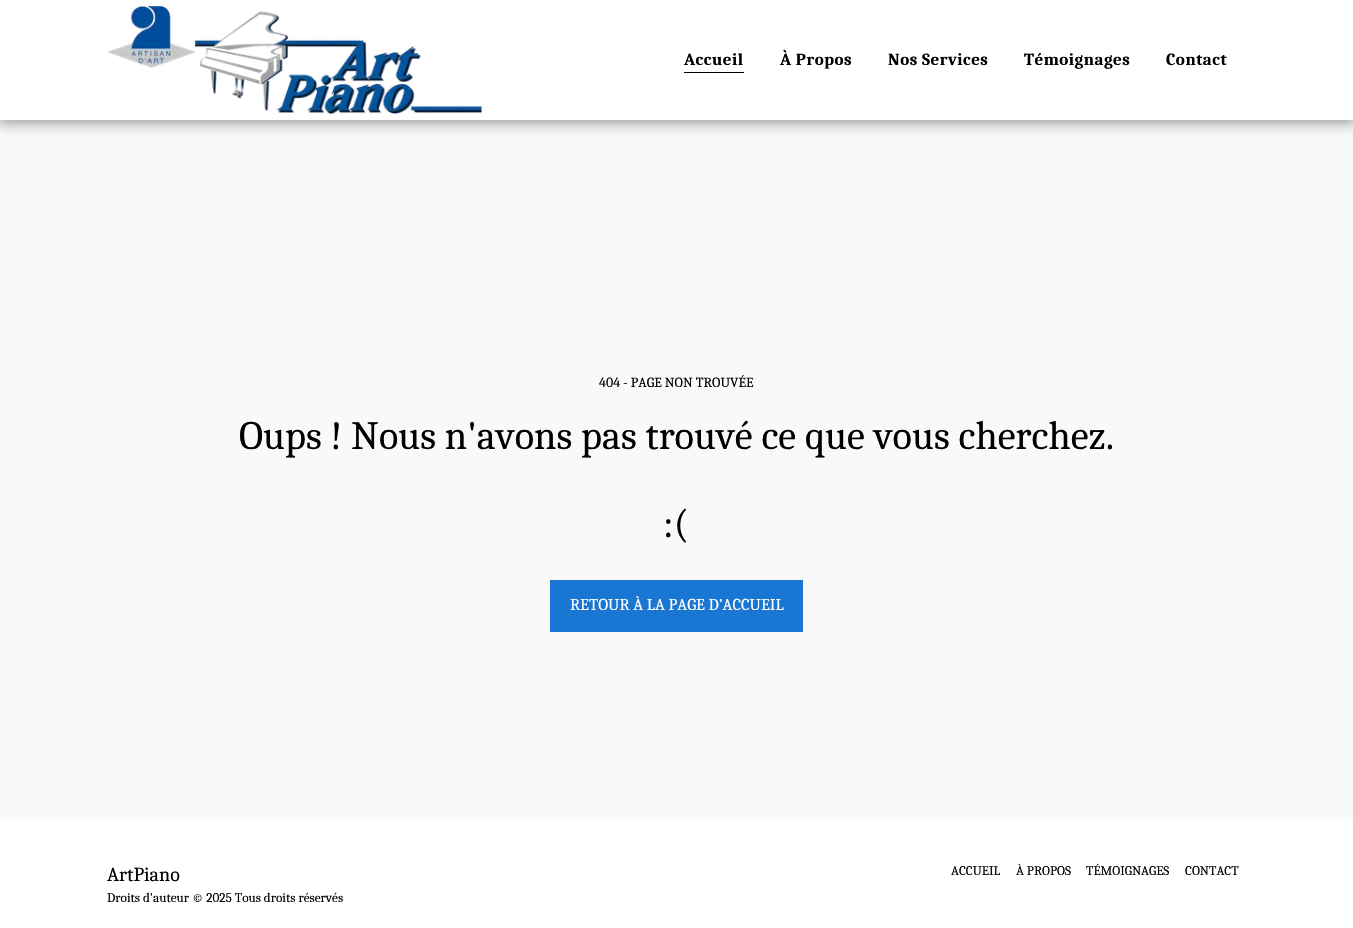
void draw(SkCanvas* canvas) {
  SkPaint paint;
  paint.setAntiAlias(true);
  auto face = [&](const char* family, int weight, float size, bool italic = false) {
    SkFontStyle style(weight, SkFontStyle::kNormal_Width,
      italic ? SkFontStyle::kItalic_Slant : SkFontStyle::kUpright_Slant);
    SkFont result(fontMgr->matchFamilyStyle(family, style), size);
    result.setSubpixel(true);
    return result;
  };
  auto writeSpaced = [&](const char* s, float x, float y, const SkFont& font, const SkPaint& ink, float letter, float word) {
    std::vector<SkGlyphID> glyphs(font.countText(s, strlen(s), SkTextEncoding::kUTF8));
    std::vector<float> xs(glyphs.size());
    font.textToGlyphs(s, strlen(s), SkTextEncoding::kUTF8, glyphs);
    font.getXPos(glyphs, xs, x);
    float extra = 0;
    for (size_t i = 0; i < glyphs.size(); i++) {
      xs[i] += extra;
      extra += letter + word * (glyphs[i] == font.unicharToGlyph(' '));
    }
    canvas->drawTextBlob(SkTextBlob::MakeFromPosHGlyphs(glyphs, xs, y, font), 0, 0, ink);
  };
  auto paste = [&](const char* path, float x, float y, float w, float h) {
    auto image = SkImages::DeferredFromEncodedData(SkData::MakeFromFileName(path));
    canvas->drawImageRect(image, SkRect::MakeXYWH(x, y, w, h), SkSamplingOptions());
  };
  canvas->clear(0xfff9f9f9);
  paint.setColor(0x59000000);
  paint.setMaskFilter(SkMaskFilter::MakeBlur(kNormal_SkBlurStyle, 6));
  canvas->drawRect(SkRect::MakeXYWH(-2, 0, 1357, 124), paint);
  paint.setMaskFilter(nullptr);
  paint.setColor(0xffffffff);
  canvas->drawRect(SkRect::MakeXYWH(0, 0, 1353, 120), paint);
  paste("img/1.png", 107, 6, 375, 108);
  {
    const struct { float x, y, w, h; SkColor color; } items[] = {
      {684, 72, 60, 1, 0xff000000},
      {550, 580, 253, 52, 0xff1976d2},
      {0, 820, 1353, 108, 0xffffffff},
    };
    for (auto [x, y, w, h, color] : items) {
      paint.setColor(color);
      canvas->drawRect(SkRect::MakeXYWH(x, y, w, h), paint);
    }
  }
  auto f0 = face("Caladea", 700, 17);
  paint.setColor(0xff000000);
  {
    const struct { const char* s; float x, y; } items[] = {
      {"Accueil", 684, 65},
      {"À Propos", 780, 65},
      {"Nos Services", 888, 65},
      {"Témoignages", 1024, 65},
      {"Contact", 1166, 65},
    };
    for (auto [s, x, y] : items) {
      writeSpaced(s, x, y, f0, paint, 0.5f, 0);
    }
  }
  auto f1 = face("Caladea", 400, 14);
  canvas->drawString("404 - PAGE NON TROUVÉE", 599, 387, f1, paint);
  auto f2 = face("Caladea", 400, 40.25f);
  canvas->drawString("Oups ! Nous n'avons pas trouvé ce que vous cherchez.", 239, 449, f2, paint);
  canvas->drawString(":(", 663, 537, f2, paint);
  auto f3 = face("Caladea", 400, 16.5f);
  paint.setColor(0xffffffff);
  canvas->drawString("RETOUR À LA PAGE D’ACCUEIL", 570, 610, f3, paint);
  auto f4 = face("Caladea", 400, 20);
  paint.setColor(0xff000000);
  canvas->drawString("ArtPiano", 107, 881, f4, paint);
  auto f5 = face("Caladea", 400, 13.25f);
  {
    const struct { const char* s; float x, y; } items[] = {
      {"Droits d'auteur © 2025 Tous droits réservés", 107, 902},
      {"ACCUEIL", 951, 875},
      {"À PROPOS", 1016, 875},
      {"TÉMOIGNAGES", 1086, 875},
      {"CONTACT", 1185, 875},
    };
    for (auto [s, x, y] : items) {
      canvas->drawString(s, x, y, f5, paint);
    }
  }
}
